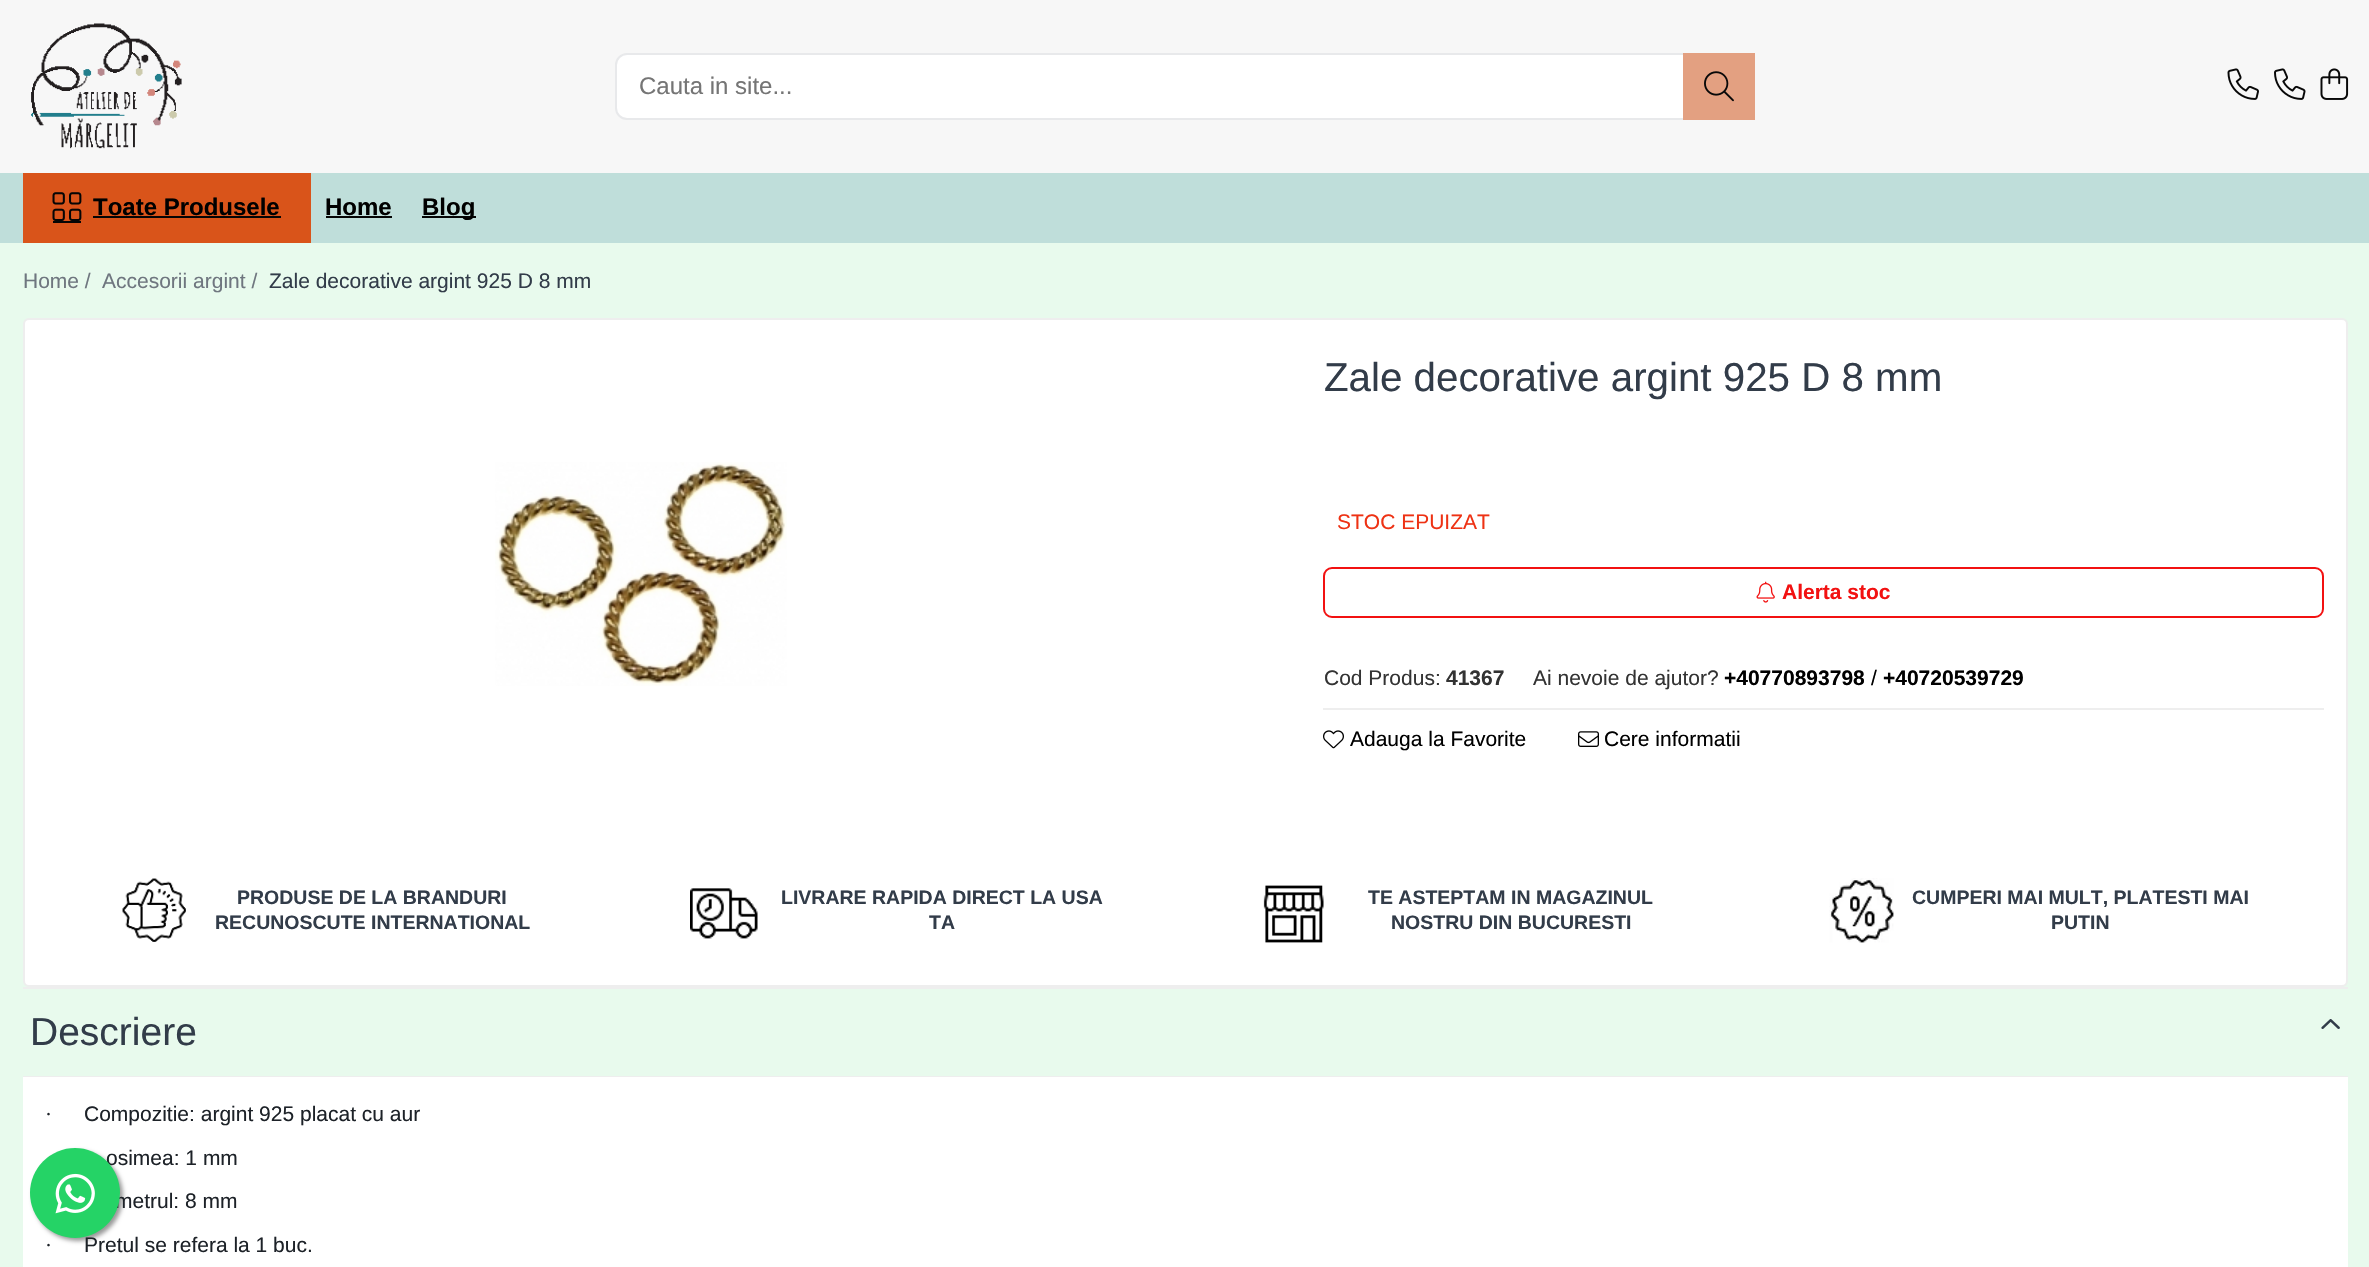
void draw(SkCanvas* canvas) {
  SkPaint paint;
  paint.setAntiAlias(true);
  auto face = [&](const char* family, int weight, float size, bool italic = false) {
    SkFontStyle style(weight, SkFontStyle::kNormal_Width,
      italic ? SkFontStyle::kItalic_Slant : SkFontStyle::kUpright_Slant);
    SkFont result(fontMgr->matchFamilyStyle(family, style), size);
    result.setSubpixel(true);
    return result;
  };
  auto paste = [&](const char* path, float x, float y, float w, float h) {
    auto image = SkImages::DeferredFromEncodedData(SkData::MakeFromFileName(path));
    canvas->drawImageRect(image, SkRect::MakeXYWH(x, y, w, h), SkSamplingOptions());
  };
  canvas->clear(0xffe8faed);
  paint.setColor(0xfff7f7f7);
  canvas->drawRect(SkRect::MakeXYWH(0, 0, 2369, 173), paint);
  paste("img/1.png", 31, 23, 151, 126);
  paint.setColor(0xffffffff);
  canvas->drawRoundRect(SkRect::MakeXYWH(616, 54, 1138, 65), 11, 11, paint);
  paint.setStroke(true);
  paint.setStrokeWidth(2);
  paint.setColor(0xffe8e9eb);
  canvas->drawRoundRect(SkRect::MakeXYWH(616, 54, 1138, 65), 11, 11, paint);
  paint.setStroke(false);
  paint.setColor(0xffe3a081);
  canvas->drawRect(SkRect::MakeXYWH(1683, 53, 72, 67), paint);
  paste("img/2.png", 1704, 71, 30, 31);
  paste("img/3.png", 2227, 68, 32, 32);
  paste("img/4.png", 2274, 68, 32, 32);
  paste("img/5.png", 2320, 68, 29, 32);
  paint.setColor(0xffbfdeda);
  canvas->drawRect(SkRect::MakeXYWH(0, 173, 2369, 70), paint);
  paint.setColor(0xffd9541a);
  canvas->drawRect(SkRect::MakeXYWH(23, 173, 288, 70), paint);
  paste("img/6.png", 52, 192, 30, 29);
  {
    const struct { float x, y, w, h; SkColor color; } items[] = {
      {53, 221, 28, 2, 0xff050505},
      {93, 216, 188, 2, 0xff050505},
      {326, 216, 66, 2, 0xff050505},
      {422, 216, 54, 2, 0xff050505},
    };
    for (auto [x, y, w, h, color] : items) {
      paint.setColor(color);
      canvas->drawRect(SkRect::MakeXYWH(x, y, w, h), paint);
    }
  }
  paint.setColor(0xffffffff);
  canvas->drawRoundRect(SkRect::MakeXYWH(24, 319, 2323, 667), 5, 5, paint);
  paint.setStroke(true);
  paint.setColor(0xffeeeeee);
  canvas->drawRoundRect(SkRect::MakeXYWH(24, 319, 2323, 667), 5, 5, paint);
  paste("img/7.png", 495, 462, 292, 224);
  paint.setColor(0xfff21111);
  canvas->drawRoundRect(SkRect::MakeXYWH(1324, 568, 999, 49), 8, 8, paint);
  paste("img/8.png", 1756, 581, 19, 22);
  paint.setStroke(false);
  paint.setColor(0xffeeeeee);
  canvas->drawRect(SkRect::MakeXYWH(1323, 708, 1001, 2), paint);
  paste("img/9.png", 1323, 730, 21, 19);
  paste("img/10.png", 1578, 731, 21, 16);
  paste("img/11.png", 122, 878, 64, 64);
  paste("img/12.png", 690, 888, 68, 51);
  paste("img/13.png", 1263, 885, 61, 58);
  paste("img/14.png", 1829, 878, 65, 65);
  canvas->drawRect(SkRect::MakeXYWH(23, 987, 2325, 2), paint);
  canvas->drawRect(SkRect::MakeXYWH(23, 1076, 2325, 1), paint);
  paste("img/15.png", 2321, 1019, 19, 10);
  paint.setColor(0xffffffff);
  canvas->drawRect(SkRect::MakeXYWH(23, 1077, 2325, 190), paint);
  paint.setColor(0xff999999);
  paint.setMaskFilter(SkMaskFilter::MakeBlur(kNormal_SkBlurStyle, 2));
  canvas->drawRoundRect(SkRect::MakeXYWH(33, 1151, 90, 90), 45, 45, paint);
  paint.setMaskFilter(nullptr);
  auto f0 = face("Liberation Sans", 400, 24);
  paint.setColor(0xff757575);
  canvas->drawString("Cauta in site...", 639, 94, f0, paint);
  auto f1 = face("Liberation Sans", 700, 24);
  paint.setColor(0xff000000);
  {
    const struct { const char* s; float x, y; } items[] = {
      {"Toate Produsele", 93, 215},
      {"Home", 325, 215},
      {"Blog", 422, 215},
    };
    for (auto [s, x, y] : items) {
      canvas->drawString(s, x, y, f1, paint);
    }
  }
  auto f2 = face("Liberation Sans", 400, 21);
  paint.setColor(0xff6f767f);
  canvas->drawString("Home /", 23, 288, f2, paint);
  canvas->drawString("Accesorii argint /", 102, 288, f2, paint);
  paint.setColor(0xff323c49);
  canvas->drawString("Zale decorative argint 925 D 8 mm", 269, 288, f2, paint);
  auto f3 = face("Liberation Sans", 400, 40.3f);
  canvas->drawString("Zale decorative argint 925 D 8 mm", 1324, 391, f3, paint);
  paint.setColor(0xffee3214);
  canvas->drawString("STOC EPUIZAT", 1337, 529, f2, paint);
  auto f4 = face("Liberation Sans", 700, 21);
  paint.setColor(0xfff21111);
  canvas->drawString("Alerta stoc", 1782, 599, f4, paint);
  paint.setColor(0xff333333);
  canvas->drawString("Cod Produs:", 1324, 685, f2, paint);
  canvas->drawString("41367", 1446, 685, f4, paint);
  canvas->drawString("Ai nevoie de ajutor?", 1533, 685, f2, paint);
  paint.setColor(0xff000000);
  canvas->drawString("+40770893798", 1724, 685, f4, paint);
  canvas->drawString("/", 1871, 685, f2, paint);
  canvas->drawString("+40720539729", 1883, 685, f4, paint);
  canvas->drawString("Adauga la Favorite", 1350, 746, f2, paint);
  canvas->drawString("Cere informatii", 1604, 746, f2, paint);
  auto f5 = face("Liberation Sans", 700, 19.5f);
  paint.setColor(0xff323c49);
  {
    const struct { const char* s; float x, y; } items[] = {
      {"PRODUSE DE LA BRANDURI", 237, 904},
      {"RECUNOSCUTE INTERNATIONAL", 215, 929},
      {"LIVRARE RAPIDA DIRECT LA USA", 781, 904},
      {"TA", 929, 929},
      {"TE ASTEPTAM IN MAGAZINUL", 1368, 904},
      {"NOSTRU DIN BUCURESTI", 1391, 929},
      {"CUMPERI MAI MULT, PLATESTI MAI", 1912, 904},
      {"PUTIN", 2051, 929},
    };
    for (auto [s, x, y] : items) {
      canvas->drawString(s, x, y, f5, paint);
    }
  }
  auto f6 = face("Liberation Sans", 400, 39);
  canvas->drawString("Descriere", 30, 1045, f6, paint);
  auto f7 = face("Liberation Serif", 400, 21);
  paint.setColor(0xff1d2228);
  canvas->drawString("·", 45, 1121, f7, paint);
  {
    const struct { const char* s; float x, y; } items[] = {
      {"Compozitie: argint 925 placat cu aur", 84, 1121},
      {"osimea: 1 mm", 106, 1165},
      {"metrul: 8 mm", 115, 1208},
    };
    for (auto [s, x, y] : items) {
      canvas->drawString(s, x, y, f2, paint);
    }
  }
  canvas->drawString("·", 45, 1252, f7, paint);
  canvas->drawString("Pretul se refera la 1 buc.", 84, 1252, f2, paint);
  paint.setColor(0xff25d366);
  canvas->drawCircle(75, 1193, 45, paint);
  paste("img/16.png", 55, 1173, 40, 41);
}
